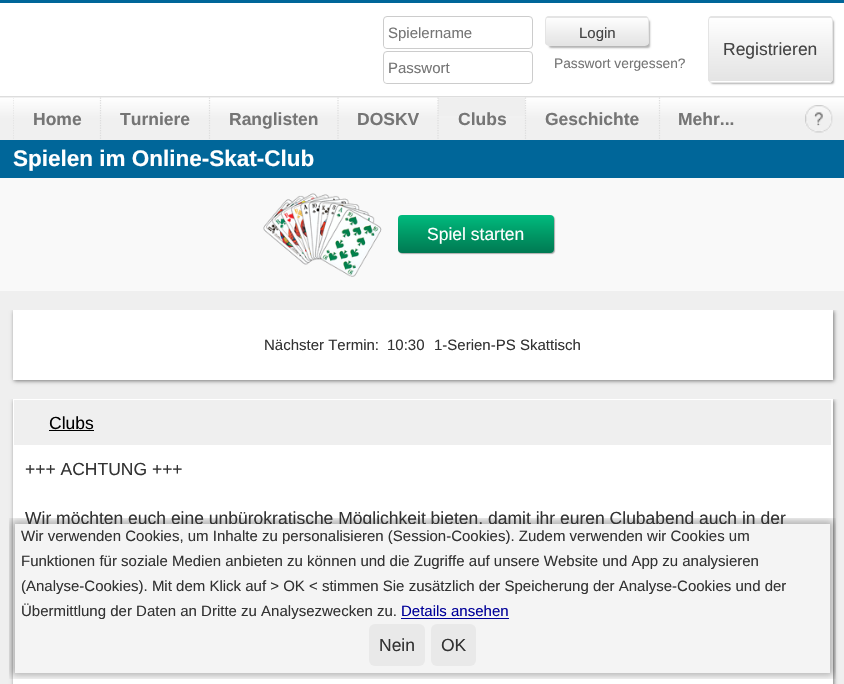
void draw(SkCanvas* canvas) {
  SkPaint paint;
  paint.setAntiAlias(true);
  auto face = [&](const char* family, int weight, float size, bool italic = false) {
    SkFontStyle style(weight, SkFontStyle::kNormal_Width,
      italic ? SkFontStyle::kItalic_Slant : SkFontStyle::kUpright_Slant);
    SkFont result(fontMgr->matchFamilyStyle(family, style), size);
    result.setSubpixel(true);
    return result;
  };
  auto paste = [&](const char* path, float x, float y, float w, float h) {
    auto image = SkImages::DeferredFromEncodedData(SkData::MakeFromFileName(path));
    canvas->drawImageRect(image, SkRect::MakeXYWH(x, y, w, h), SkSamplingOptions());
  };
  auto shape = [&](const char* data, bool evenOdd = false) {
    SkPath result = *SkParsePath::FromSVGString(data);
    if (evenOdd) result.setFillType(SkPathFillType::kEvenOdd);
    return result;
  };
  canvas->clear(0xfff9f9f9);
  paint.setColor(0xff006699);
  canvas->drawRect(SkRect::MakeXYWH(0, 0, 844, 3), paint);
  paint.setColor(0xffffffff);
  canvas->drawRect(SkRect::MakeXYWH(0, 3, 844, 93), paint);
  paint.setStroke(true);
  paint.setStrokeWidth(1);
  paint.setColor(0xffcccccc);
  canvas->drawRoundRect(SkRect::MakeXYWH(383.5f, 16.5f, 149, 32), 3.5f, 3.5f, paint);
  paint.setStroke(false);
  paint.setColor(0xffffffff);
  canvas->drawRoundRect(SkRect::MakeXYWH(384, 18, 147, 30), 4, 4, paint);
  paint.setStroke(true);
  paint.setColor(0xffcccccc);
  canvas->drawRoundRect(SkRect::MakeXYWH(383.5f, 51.5f, 149, 32), 3.5f, 3.5f, paint);
  paint.setStroke(false);
  paint.setColor(0xffffffff);
  canvas->drawRoundRect(SkRect::MakeXYWH(384, 53, 104, 30), 4, 4, paint);
  paint.setColor(0x4d000000);
  paint.setMaskFilter(SkMaskFilter::MakeBlur(kNormal_SkBlurStyle, 1));
  canvas->drawRoundRect(SkRect::MakeXYWH(549, 20, 101, 28), 2.5f, 2.5f, paint);
  paint.setMaskFilter(nullptr);
  canvas->save();
  canvas->clipPath(shape("M549 16H645C647 16 649 18 649 20V42C649 44 647 46 645 46H549C547 46 545 44 545 42V20C545 18 547 16 549 16Z"), true);
  {
    const SkColor colors[] = {0xffffffff, 0xfff0f0f0, 0xffe4e4e4};
    const float stops[] = {0, 0.5f, 1};
    const SkPoint ends[] = {{597, -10}, {597, 18}};
    paint.setShader(SkGradientShader::MakeLinear(ends, colors, stops, 3, SkTileMode::kClamp));
    paint.setAlpha(255);
  }
  canvas->drawRect(SkRect::MakeXYWH(545, 16, 104, 2), paint);
  {
    const SkColor colors[] = {0xffffffff, 0xfff0f0f0, 0xffe4e4e4};
    const float stops[] = {0, 0.5f, 1};
    const SkPoint ends[] = {{597, 17}, {597, 45}};
    paint.setShader(SkGradientShader::MakeLinear(ends, colors, stops, 3, SkTileMode::kClamp));
    paint.setAlpha(255);
  }
  canvas->drawRect(SkRect::MakeXYWH(545, 18, 104, 27), paint);
  canvas->restore();
  paint.setStroke(true);
  paint.setShader(nullptr);
  paint.setColor(0xffe4e4e4);
  canvas->drawRoundRect(SkRect::MakeXYWH(545.5f, 16.5f, 103, 29), 3.5f, 3.5f, paint);
  paint.setStroke(false);
  paint.setColor(0x4d000000);
  paint.setMaskFilter(SkMaskFilter::MakeBlur(kNormal_SkBlurStyle, 1));
  canvas->drawRoundRect(SkRect::MakeXYWH(711, 20, 123, 64), 2.5f, 2.5f, paint);
  paint.setMaskFilter(nullptr);
  canvas->save();
  canvas->clipPath(shape("M712 16H829C831 16 833 18 833 20V79C833 81 831 83 829 83H712C710 83 708 81 708 79V20C708 18 710 16 712 16Z"), true);
  {
    const SkColor colors[] = {0xffffffff, 0xfff0f0f0, 0xffe4e4e4};
    const float stops[] = {0, 0.5f, 1};
    const SkPoint ends[] = {{770, -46}, {770, 18}};
    paint.setShader(SkGradientShader::MakeLinear(ends, colors, stops, 3, SkTileMode::kClamp));
    paint.setAlpha(255);
  }
  canvas->drawRect(SkRect::MakeXYWH(708, 16, 125, 2), paint);
  {
    const SkColor colors[] = {0xffffffff, 0xfff0f0f0, 0xffe4e4e4};
    const float stops[] = {0, 0.5f, 1};
    const SkPoint ends[] = {{770, 17}, {770, 81}};
    paint.setShader(SkGradientShader::MakeLinear(ends, colors, stops, 3, SkTileMode::kClamp));
    paint.setAlpha(255);
  }
  canvas->drawRect(SkRect::MakeXYWH(708, 18, 125, 63), paint);
  {
    const SkColor colors[] = {0xffffffff, 0xfff0f0f0, 0xffe4e4e4};
    const float stops[] = {0, 0.5f, 1};
    const SkPoint ends[] = {{770, 81}, {770, 145}};
    paint.setShader(SkGradientShader::MakeLinear(ends, colors, stops, 3, SkTileMode::kClamp));
    paint.setAlpha(255);
  }
  canvas->drawRect(SkRect::MakeXYWH(708, 81, 125, 2), paint);
  canvas->restore();
  paint.setStroke(true);
  paint.setShader(nullptr);
  paint.setColor(0xffe4e4e4);
  canvas->drawRoundRect(SkRect::MakeXYWH(708.5f, 16.5f, 124, 66), 3.5f, 3.5f, paint);
  paint.setStroke(false);
  {
    const SkColor colors[] = {0xffffffff, 0xfff0f0f0, 0xfff0f0f0};
    const float stops[] = {0, 0.5f, 1};
    const SkPoint ends[] = {{423, 55}, {423, 98}};
    paint.setShader(SkGradientShader::MakeLinear(ends, colors, stops, 3, SkTileMode::kClamp));
    paint.setAlpha(255);
  }
  canvas->drawRect(SkRect::MakeXYWH(0, 97, 844, 1), paint);
  {
    const SkColor colors[] = {0xffffffff, 0xfff0f0f0, 0xfff0f0f0};
    const float stops[] = {0, 0.5f, 1};
    const SkPoint ends[] = {{423, 97}, {423, 140}};
    paint.setShader(SkGradientShader::MakeLinear(ends, colors, stops, 3, SkTileMode::kClamp));
    paint.setAlpha(255);
  }
  canvas->drawRect(SkRect::MakeXYWH(0, 98, 844, 42), paint);
  paint.setShader(nullptr);
  paint.setColor(0xffdddddd);
  canvas->drawRect(SkRect::MakeXYWH(0, 96, 844, 1), paint);
  canvas->save();
  canvas->clipRect(SkRect::MakeXYWH(13, 98, 820, 42));
  paint.setStroke(true);
  paint.setStrokeWidth(1.2f);
  paint.setPathEffect(SkDashPathEffect::Make({{1.25f, 1.25f}}, 0));
  canvas->drawPath(shape("M13 97.5V140"), paint);
  paint.setPathEffect(nullptr);
  canvas->restore();
  paint.setPathEffect(SkDashPathEffect::Make({{1.25f, 1.25f}}, 0));
  canvas->drawPath(shape("M100.5 97.5V140"), paint);
  paint.setPathEffect(nullptr);
  paint.setPathEffect(SkDashPathEffect::Make({{1.25f, 1.25f}}, 0));
  canvas->drawPath(shape("M209.5 97.5V140"), paint);
  paint.setPathEffect(nullptr);
  paint.setPathEffect(SkDashPathEffect::Make({{1.25f, 1.25f}}, 0));
  canvas->drawPath(shape("M338 97.5V140"), paint);
  paint.setPathEffect(nullptr);
  paint.setStroke(false);
  paint.setColor(0xffefefef);
  canvas->drawRect(SkRect::MakeXYWH(438, 98, 87, 18), paint);
  paint.setStroke(true);
  paint.setColor(0xffdddddd);
  paint.setPathEffect(SkDashPathEffect::Make({{1.25f, 1.25f}}, 0));
  canvas->drawPath(shape("M438 97.5V140"), paint);
  paint.setPathEffect(nullptr);
  paint.setPathEffect(SkDashPathEffect::Make({{1.25f, 1.25f}}, 0));
  canvas->drawPath(shape("M525.5 97.5V140"), paint);
  paint.setPathEffect(nullptr);
  paint.setPathEffect(SkDashPathEffect::Make({{1.25f, 1.25f}}, 0));
  canvas->drawPath(shape("M659.5 97.5V140"), paint);
  paint.setPathEffect(nullptr);
  paste("img/1.png", 805, 105, 28, 28);
  paint.setStroke(false);
  paint.setColor(0xff006699);
  canvas->drawRect(SkRect::MakeXYWH(0, 140, 844, 38), paint);
  paste("img/2.png", 263, 193, 119, 84);
  paint.setColor(0x4d000000);
  paint.setMaskFilter(SkMaskFilter::MakeBlur(kNormal_SkBlurStyle, 0.5f));
  canvas->drawRoundRect(SkRect::MakeXYWH(399, 216, 156, 38), 4, 4, paint);
  paint.setMaskFilter(nullptr);
  {
    const SkColor colors[] = {0xff00bb7e, 0xff009966, 0xff007952};
    const float stops[] = {0, 0.5f, 1};
    const SkPoint ends[] = {{476, 215}, {476, 253}};
    paint.setShader(SkGradientShader::MakeLinear(ends, colors, stops, 3, SkTileMode::kClamp));
    paint.setAlpha(255);
  }
  canvas->drawRoundRect(SkRect::MakeXYWH(398, 215, 156, 38), 4, 4, paint);
  paint.setShader(nullptr);
  paint.setColor(0xffefefef);
  canvas->drawRect(SkRect::MakeXYWH(0, 291, 844, 393), paint);
  canvas->save();
  canvas->clipRect(SkRect::MakeXYWH(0, 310, 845, 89));
  paint.setColor(0x80000000);
  paint.setMaskFilter(SkMaskFilter::MakeBlur(kNormal_SkBlurStyle, 2));
  canvas->drawRect(SkRect::MakeXYWH(14, 311, 820, 70), paint);
  paint.setMaskFilter(nullptr);
  canvas->restore();
  paint.setColor(0xffffffff);
  canvas->drawRect(SkRect::MakeXYWH(13, 310, 820, 70), paint);
  canvas->save();
  canvas->clipRect(SkRect::MakeXYWH(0, 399, 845, 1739));
  paint.setColor(0x80000000);
  paint.setMaskFilter(SkMaskFilter::MakeBlur(kNormal_SkBlurStyle, 2));
  canvas->drawRect(SkRect::MakeXYWH(14, 400, 820, 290), paint);
  paint.setMaskFilter(nullptr);
  canvas->restore();
  {
    const struct { float x, y, w, h; SkColor color; } items[] = {
      {13, 399, 820, 285, 0xffffffff},
      {14, 400, 817, 45, 0xffefefef},
      {49, 430, 45, 1, 0xff000000},
    };
    for (auto [x, y, w, h, color] : items) {
      paint.setColor(color);
      canvas->drawRect(SkRect::MakeXYWH(x, y, w, h), paint);
    }
  }
  canvas->save();
  canvas->clipRect(SkRect::MakeXYWH(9, 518, 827, 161));
  paint.setColor(0x4d000000);
  paint.setMaskFilter(SkMaskFilter::MakeBlur(kNormal_SkBlurStyle, 4));
  canvas->drawRect(SkRect::MakeXYWH(11, 520, 823, 156), paint);
  paint.setMaskFilter(nullptr);
  canvas->restore();
  auto f0 = face("Liberation Sans", 400, 15);
  paint.setColor(0xff757575);
  canvas->drawString("Spielername", 388, 38, f0, paint);
  canvas->drawString("Passwort", 388, 73, f0, paint);
  paint.setColor(0xff444444);
  canvas->drawString("Login", 579, 38, f0, paint);
  auto f1 = face("Liberation Sans", 400, 13.75f);
  paint.setColor(0xff757575);
  canvas->drawString("Passwort vergessen?", 554, 68, f1, paint);
  auto f2 = face("Liberation Sans", 400, 17.5f);
  paint.setColor(0xff444444);
  canvas->drawString("Registrieren", 723, 55, f2, paint);
  auto f3 = face("Liberation Sans", 700, 17.5f);
  paint.setColor(0xff757575);
  {
    const struct { const char* s; float x, y; } items[] = {
      {"Home", 33, 125},
      {"Turniere", 120, 125},
      {"Ranglisten", 229, 125},
      {"DOSKV", 357, 125},
      {"Clubs", 458, 125},
      {"Geschichte", 545, 125},
      {"Mehr...", 678, 125},
    };
    for (auto [s, x, y] : items) {
      canvas->drawString(s, x, y, f3, paint);
    }
  }
  auto f4 = face("Liberation Sans", 700, 22.5f);
  paint.setColor(0xffffffff);
  canvas->drawString("Spielen im Online-Skat-Club", 13, 166, f4, paint);
  canvas->drawString("Spiel starten", 427, 240, f2, paint);
  paint.setColor(0xff333333);
  {
    const struct { const char* s; float x, y; } items[] = {
      {"Nächster Termin:", 264, 350},
      {"10:30", 387, 350},
      {"1-Serien-PS", 434, 350},
      {"Skattisch", 520, 350},
    };
    for (auto [s, x, y] : items) {
      canvas->drawString(s, x, y, f0, paint);
    }
  }
  paint.setColor(0xff000000);
  canvas->drawString("Clubs", 49, 429, f2, paint);
  paint.setColor(0xff333333);
  canvas->drawString("+++ ACHTUNG +++", 25, 475, f2, paint);
  canvas->drawString("Wir möchten euch eine unbürokratische Möglichkeit bieten, damit ihr euren Clubabend auch in der", 25, 524, f2, paint);
  paint.setColor(0xfff4f4f4);
  canvas->drawRect(SkRect::MakeXYWH(15, 524, 815, 149), paint);
  paint.setColor(0xff333333);
  {
    const struct { const char* s; float x, y; } items[] = {
      {"Wir verwenden Cookies, um Inhalte zu personalisieren (Session-Cookies). Zudem verwenden wir Cookies um", 21, 541},
      {"Funktionen für soziale Medien anbieten zu können und die Zugriffe auf unsere Website und App zu analysieren", 21, 566},
      {"(Analyse-Cookies). Mit dem Klick auf > OK < stimmen Sie zusätzlich der Speicherung der Analyse-Cookies und der", 21, 591},
      {"Übermittlung der Daten an Dritte zu Analysezwecken zu.", 21, 616},
    };
    for (auto [s, x, y] : items) {
      canvas->drawString(s, x, y, f0, paint);
    }
  }
  paint.setColor(0xff000099);
  canvas->drawString("Details ansehen", 401, 616, f0, paint);
  canvas->drawRect(SkRect::MakeXYWH(401, 618, 108, 1), paint);
  paint.setColor(0xffe9e9e9);
  canvas->drawRoundRect(SkRect::MakeXYWH(369, 624, 56, 42), 6, 6, paint);
  paint.setColor(0xff333333);
  canvas->drawString("Nein", 379, 651, f2, paint);
  paint.setColor(0xffe9e9e9);
  canvas->drawRoundRect(SkRect::MakeXYWH(431, 624, 45, 42), 6, 6, paint);
  paint.setColor(0xff333333);
  canvas->drawString("OK", 441, 651, f2, paint);
}
